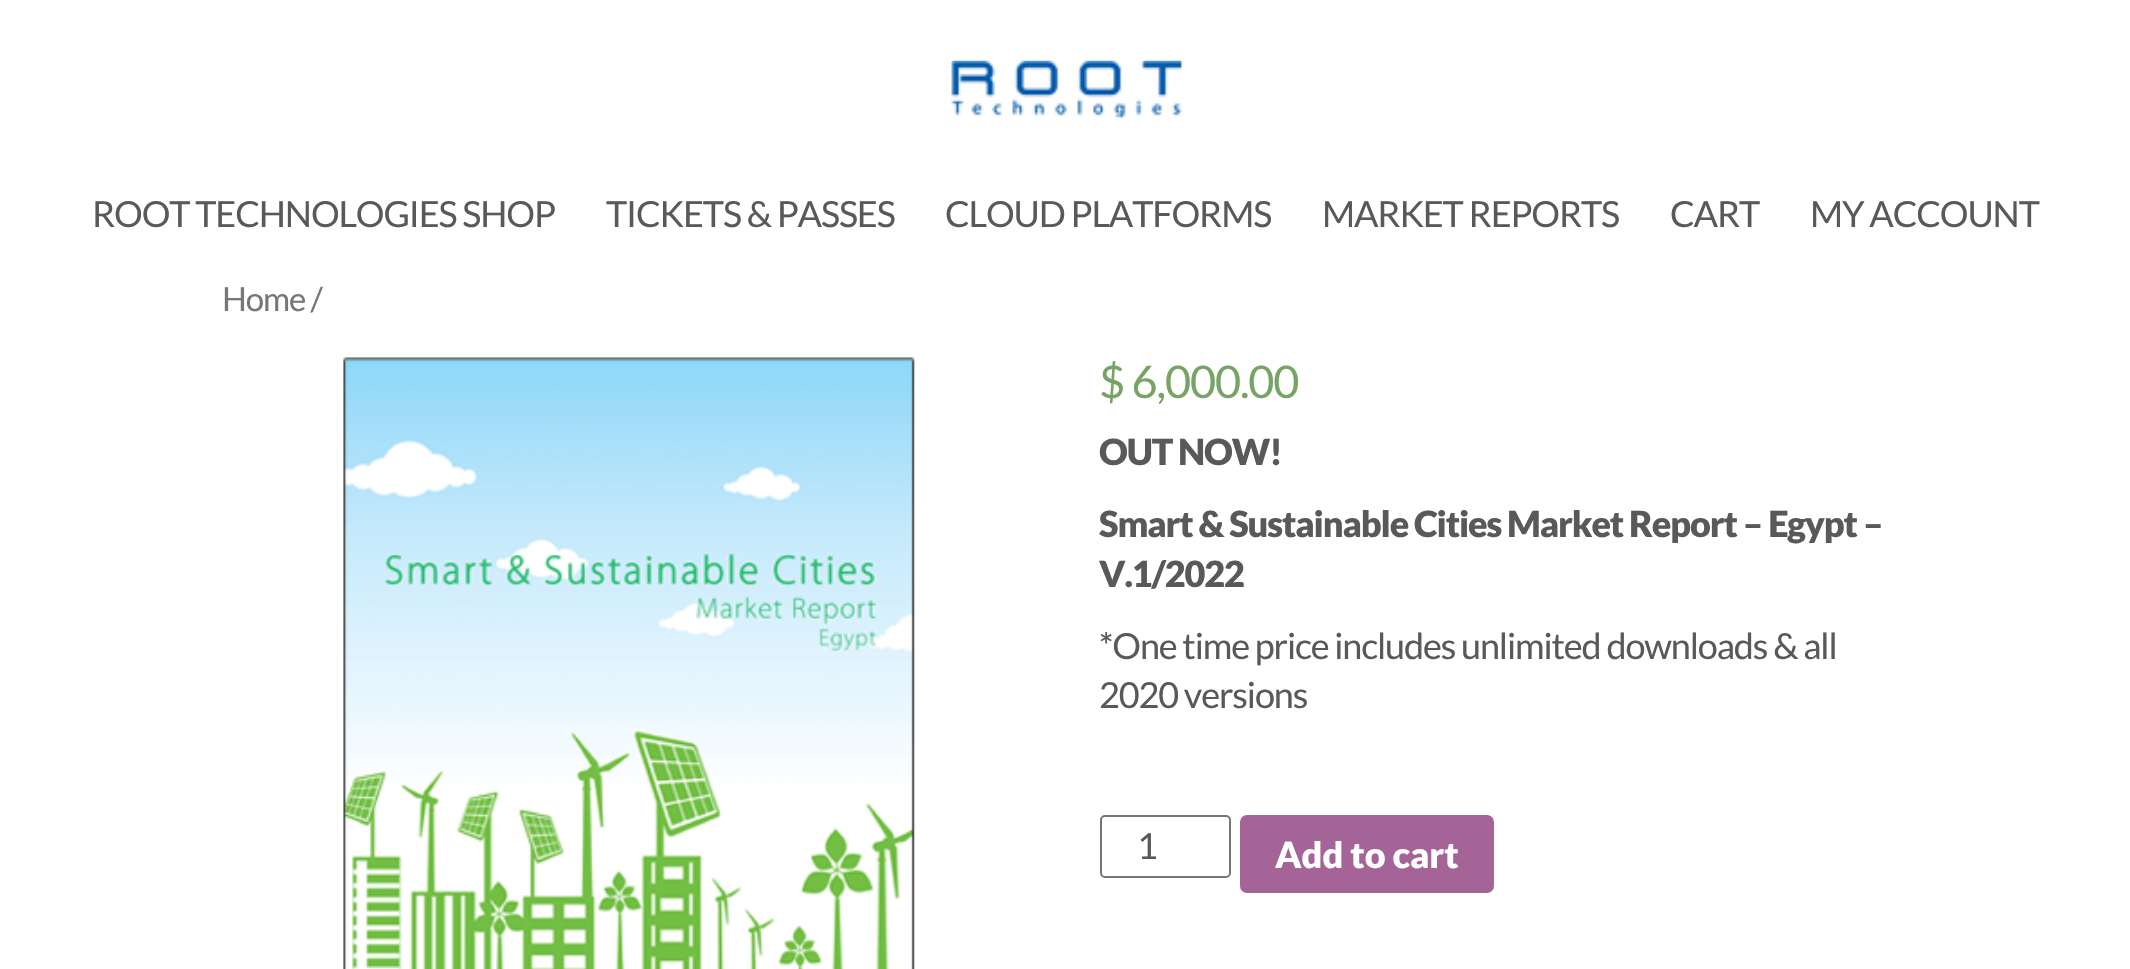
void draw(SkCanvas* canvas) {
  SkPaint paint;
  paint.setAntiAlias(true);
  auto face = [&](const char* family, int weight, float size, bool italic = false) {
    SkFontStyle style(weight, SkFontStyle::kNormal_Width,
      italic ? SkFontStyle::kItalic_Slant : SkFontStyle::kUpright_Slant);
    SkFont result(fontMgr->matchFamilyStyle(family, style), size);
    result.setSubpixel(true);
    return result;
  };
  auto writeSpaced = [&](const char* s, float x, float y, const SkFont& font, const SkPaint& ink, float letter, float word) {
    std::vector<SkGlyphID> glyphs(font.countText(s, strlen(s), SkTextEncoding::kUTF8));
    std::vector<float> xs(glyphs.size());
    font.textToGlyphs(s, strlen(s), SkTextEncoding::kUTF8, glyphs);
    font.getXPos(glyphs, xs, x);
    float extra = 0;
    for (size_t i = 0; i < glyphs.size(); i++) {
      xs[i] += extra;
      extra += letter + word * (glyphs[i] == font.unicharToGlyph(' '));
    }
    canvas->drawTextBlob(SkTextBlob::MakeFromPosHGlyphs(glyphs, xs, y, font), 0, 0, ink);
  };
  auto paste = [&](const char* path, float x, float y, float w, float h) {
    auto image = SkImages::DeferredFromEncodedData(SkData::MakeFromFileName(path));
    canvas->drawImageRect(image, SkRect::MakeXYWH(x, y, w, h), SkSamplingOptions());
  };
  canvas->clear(0xffffffff);
  paste("img/1.png", 951, 60, 231, 58);
  paste("img/2.png", 343, 357, 572, 612);
  paint.setStroke(true);
  paint.setStrokeWidth(2);
  paint.setColor(0xff767676);
  canvas->drawRoundRect(SkRect::MakeXYWH(1101, 816, 129, 61), 4, 4, paint);
  paint.setStroke(false);
  paint.setColor(0xffa46497);
  canvas->drawRoundRect(SkRect::MakeXYWH(1240, 815, 254, 78), 7, 7, paint);
  auto f0 = face("Lato", 400, 36);
  paint.setColor(0xff595959);
  {
    const struct { const char* s; float x, y; } items[] = {
      {"ROOT TECHNOLOGIES SHOP", 92, 227},
      {"TICKETS & PASSES", 606, 227},
      {"CLOUD PLATFORMS", 945, 227},
      {"MARKET REPORTS", 1322, 227},
      {"CART", 1670, 227},
      {"MY ACCOUNT", 1810, 227},
    };
    for (auto [s, x, y] : items) {
      writeSpaced(s, x, y, f0, paint, -1.12f, 0);
    }
  }
  auto f1 = face("Lato", 400, 33);
  paint.setColor(0xff777777);
  writeSpaced("Home /", 222, 311, f1, paint, -1.12f, 0);
  auto f2 = face("Lato", 400, 45);
  paint.setColor(0xff77a464);
  writeSpaced("$ 6,000.00", 1099, 398, f2, paint, -1.12f, 0);
  auto f3 = face("Lato", 900, 36);
  paint.setColor(0xff595959);
  {
    const struct { const char* s; float x, y; } items[] = {
      {"OUT NOW!", 1099, 465},
      {"Smart & Sustainable Cities Market Report – Egypt –", 1099, 537},
      {"V.1/2022", 1099, 587},
    };
    for (auto [s, x, y] : items) {
      writeSpaced(s, x, y, f3, paint, -1.12f, 0);
    }
  }
  writeSpaced("*One time price includes unlimited downloads & all", 1099, 659, f0, paint, -1.12f, 0);
  writeSpaced("2020 versions", 1099, 708, f0, paint, -1.12f, 0);
  canvas->drawString("1", 1137, 859, f0, paint);
  paint.setColor(0xffffffff);
  canvas->drawString("Add to cart", 1275, 868, f3, paint);
}
